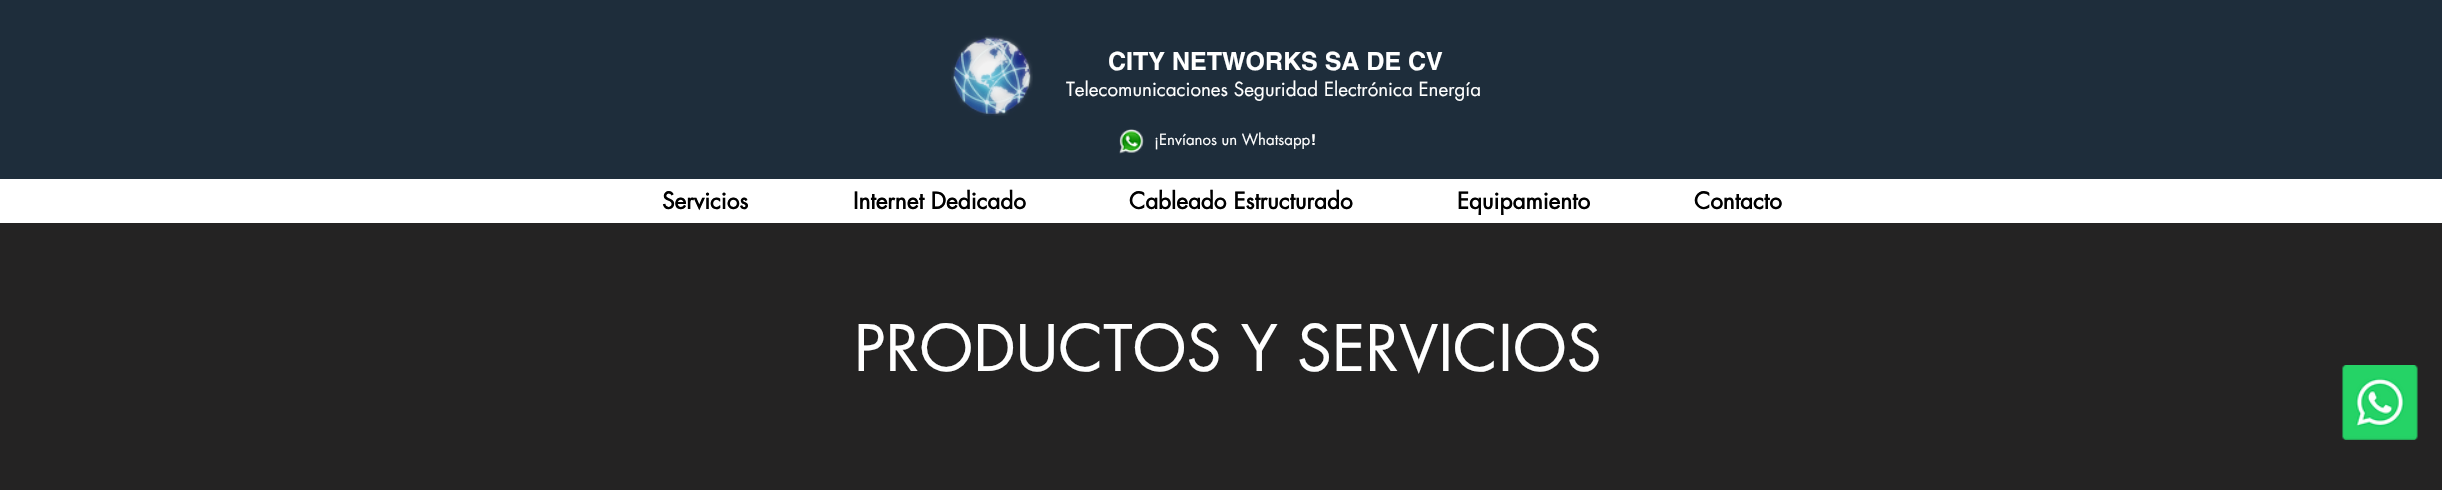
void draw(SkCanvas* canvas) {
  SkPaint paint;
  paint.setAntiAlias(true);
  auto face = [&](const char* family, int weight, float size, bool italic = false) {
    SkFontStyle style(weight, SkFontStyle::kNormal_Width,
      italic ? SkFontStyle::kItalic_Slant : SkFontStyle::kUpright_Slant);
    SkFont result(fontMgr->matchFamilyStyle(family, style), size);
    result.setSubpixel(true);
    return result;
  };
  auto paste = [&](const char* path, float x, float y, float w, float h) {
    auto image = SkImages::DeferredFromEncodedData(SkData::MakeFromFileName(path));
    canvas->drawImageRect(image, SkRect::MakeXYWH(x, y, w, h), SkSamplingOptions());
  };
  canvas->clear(0xff242323);
  paint.setColor(0xff1e2d3b);
  canvas->drawRect(SkRect::MakeXYWH(0, 0, 2442, 179), paint);
  paste("img/1.png", 951, 35, 82, 81);
  paste("img/2.png", 1119, 129, 25, 25);
  paint.setColor(0xffffffff);
  canvas->drawRect(SkRect::MakeXYWH(0, 179, 2442, 44), paint);
  paste("img/3.png", 2342, 365, 76, 75);
  auto f0 = face("helvetica", 700, 25);
  canvas->drawString("CITY NETWORKS SA DE CV", 1108, 70, f0, paint);
  auto f1 = face("futura", 400, 18.75f);
  canvas->drawString("Telecomunicaciones Seguridad Electrónica Energía", 1066, 96, f1, paint);
  auto f2 = face("futura", 400, 15);
  canvas->drawString("¡Envíanos un Whatsapp", 1154, 145, f2, paint);
  auto f3 = face("helvetica", 700, 15);
  canvas->drawString("!", 1311, 145, f3, paint);
  auto f4 = face("futura", 700, 22.5f);
  paint.setColor(0xff000000);
  {
    const struct { const char* s; float x, y; } items[] = {
      {"Servicios", 662, 209},
      {"Internet Dedicado", 853, 209},
      {"Cableado Estructurado", 1129, 209},
      {"Equipamiento", 1457, 209},
      {"Contacto", 1694, 209},
    };
    for (auto [s, x, y] : items) {
      canvas->drawString(s, x, y, f4, paint);
    }
  }
  auto f5 = face("futura", 400, 62.5f);
  paint.setColor(0xffffffff);
  canvas->drawString("PRODUCTOS Y SERVICIOS", 854, 371, f5, paint);
}
